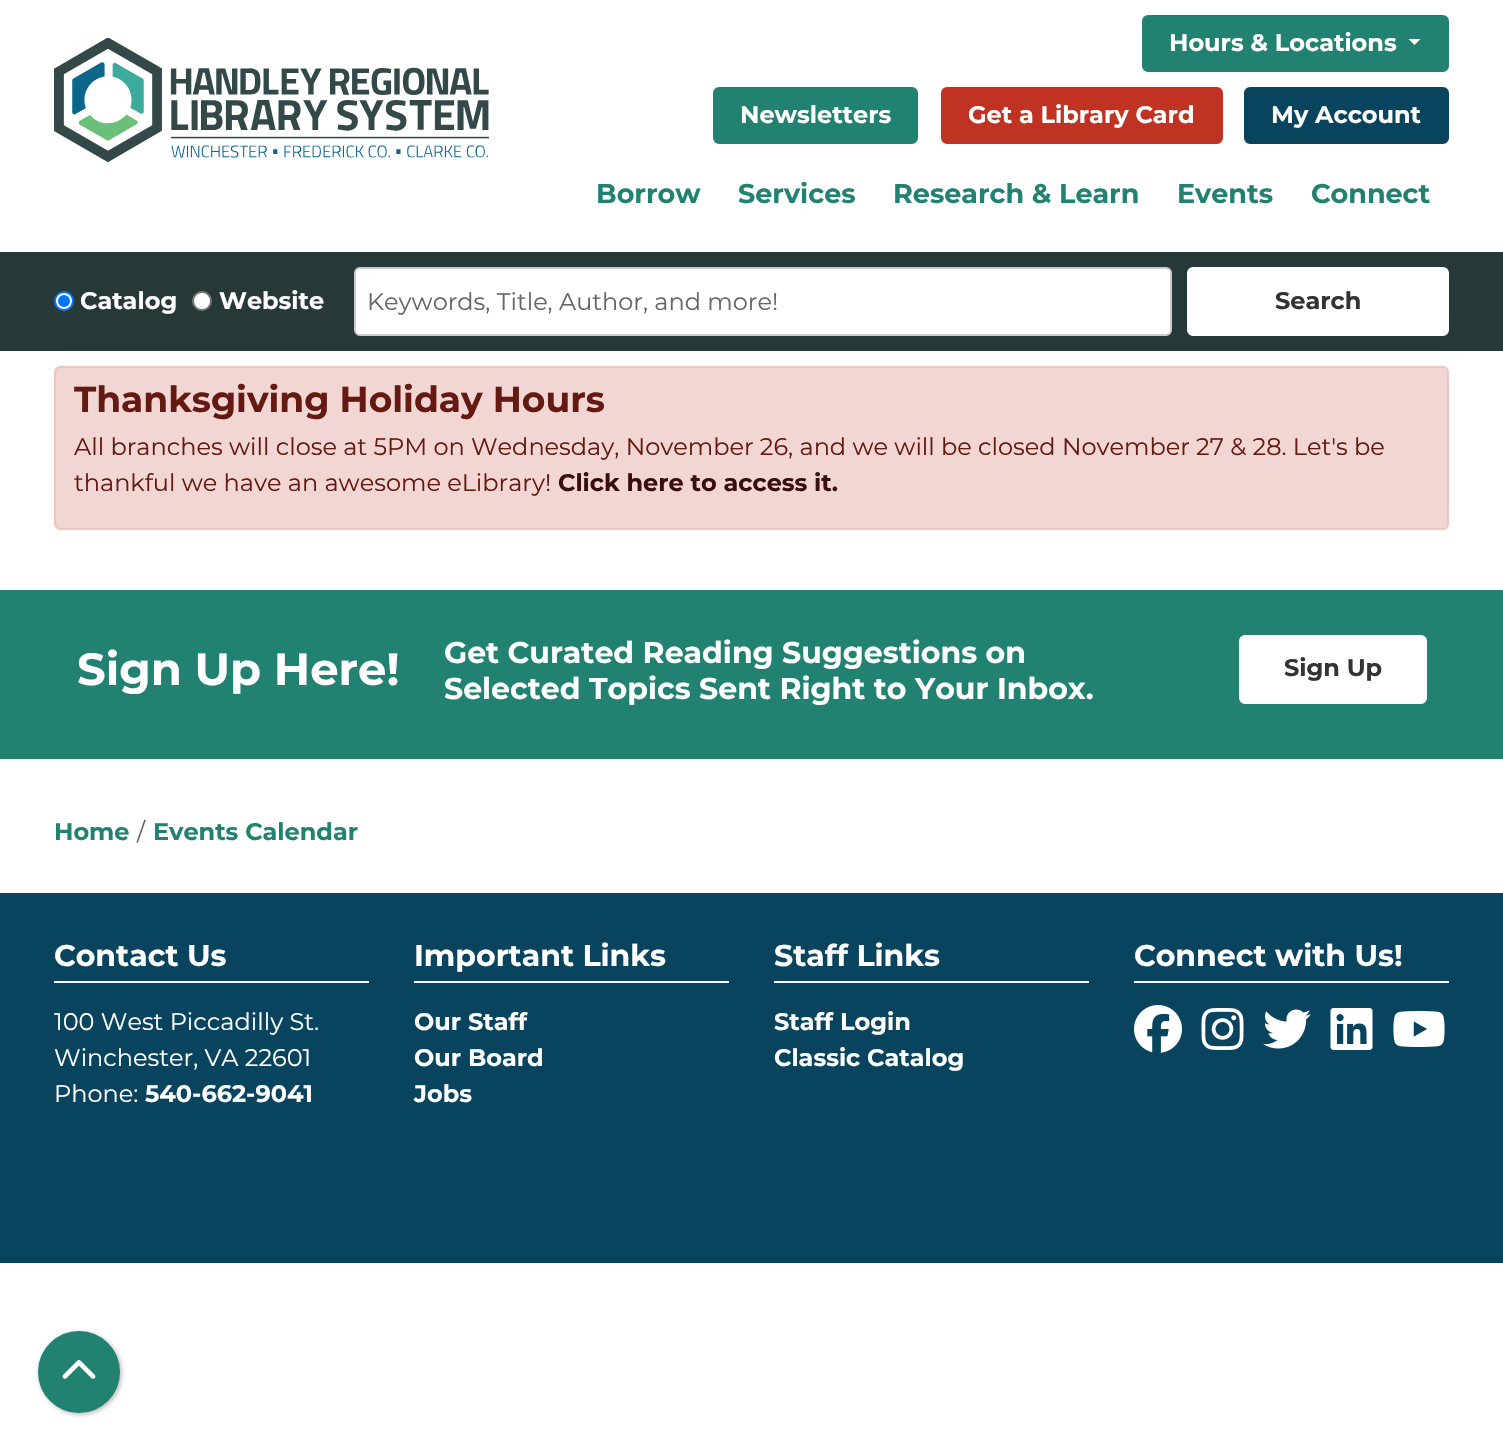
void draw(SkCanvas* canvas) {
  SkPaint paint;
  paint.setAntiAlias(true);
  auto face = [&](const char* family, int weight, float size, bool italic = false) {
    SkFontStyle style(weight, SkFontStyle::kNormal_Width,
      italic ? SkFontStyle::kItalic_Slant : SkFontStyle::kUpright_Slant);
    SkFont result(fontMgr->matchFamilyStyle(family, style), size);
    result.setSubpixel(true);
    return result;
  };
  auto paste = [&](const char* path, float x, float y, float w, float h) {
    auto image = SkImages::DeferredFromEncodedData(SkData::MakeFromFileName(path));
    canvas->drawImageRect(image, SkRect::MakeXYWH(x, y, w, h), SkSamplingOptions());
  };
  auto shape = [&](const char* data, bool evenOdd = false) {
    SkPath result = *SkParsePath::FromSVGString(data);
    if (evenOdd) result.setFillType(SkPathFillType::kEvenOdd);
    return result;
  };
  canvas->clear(0xffffffff);
  paste("img/1.png", 54, 38, 435, 124);
  paint.setColor(0xff228271);
  canvas->drawRoundRect(SkRect::MakeXYWH(1143, 16, 305, 55), 5, 5, paint);
  paint.setStroke(true);
  paint.setStrokeWidth(2);
  canvas->drawRoundRect(SkRect::MakeXYWH(1143, 16, 305, 55), 5, 5, paint);
  paint.setStroke(false);
  paint.setColor(0xffffffff);
  canvas->drawPath(shape("M1408.5 39H1420.5L1414.5 45Z"), paint);
  paint.setColor(0xff228271);
  canvas->drawRoundRect(SkRect::MakeXYWH(714, 88, 203, 55), 5, 5, paint);
  paint.setStroke(true);
  canvas->drawRoundRect(SkRect::MakeXYWH(714, 88, 203, 55), 5, 5, paint);
  paint.setStroke(false);
  paint.setColor(0xffc03221);
  canvas->drawRoundRect(SkRect::MakeXYWH(942, 88, 280, 55), 5, 5, paint);
  paint.setStroke(true);
  canvas->drawRoundRect(SkRect::MakeXYWH(942, 88, 280, 55), 5, 5, paint);
  paint.setStroke(false);
  paint.setColor(0xff08445e);
  canvas->drawRoundRect(SkRect::MakeXYWH(1245, 88, 203, 55), 5, 5, paint);
  paint.setStroke(true);
  canvas->drawRoundRect(SkRect::MakeXYWH(1245, 88, 203, 55), 5, 5, paint);
  paint.setStroke(false);
  paint.setColor(0xff273838);
  canvas->drawRect(SkRect::MakeXYWH(0, 252, 1503, 99), paint);
  paint.setColor(0xffffffff);
  canvas->drawCircle(64, 301, 9, paint);
  paint.setStroke(true);
  paint.setColor(0xff0075ff);
  canvas->drawCircle(64, 301, 9, paint);
  paint.setStroke(false);
  canvas->drawCircle(64, 301, 6, paint);
  paint.setColor(0xffffffff);
  canvas->drawCircle(202, 301, 9, paint);
  paint.setStroke(true);
  paint.setColor(0xff767676);
  canvas->drawCircle(202, 301, 9, paint);
  paint.setStroke(false);
  paint.setColor(0xffffffff);
  canvas->drawRoundRect(SkRect::MakeXYWH(355, 268, 816, 67), 5, 5, paint);
  paint.setStroke(true);
  paint.setColor(0xffcccccc);
  canvas->drawRoundRect(SkRect::MakeXYWH(355, 268, 816, 67), 5, 5, paint);
  paint.setStroke(false);
  paint.setColor(0xffffffff);
  canvas->drawRoundRect(SkRect::MakeXYWH(1188, 268, 260, 67), 5, 5, paint);
  paint.setStroke(true);
  canvas->drawRoundRect(SkRect::MakeXYWH(1188, 268, 260, 67), 5, 5, paint);
  paint.setStroke(false);
  paint.setColor(0xfff2d6d3);
  canvas->drawRoundRect(SkRect::MakeXYWH(55, 367, 1393, 162), 5, 5, paint);
  paint.setStroke(true);
  paint.setColor(0xffedc6c1);
  canvas->drawRoundRect(SkRect::MakeXYWH(55, 367, 1393, 162), 5, 5, paint);
  paint.setStroke(false);
  paint.setColor(0xff228271);
  canvas->drawRect(SkRect::MakeXYWH(0, 590, 1503, 169), paint);
  paint.setColor(0xffffffff);
  canvas->drawRoundRect(SkRect::MakeXYWH(1240, 636, 186, 67), 5, 5, paint);
  paint.setStroke(true);
  canvas->drawRoundRect(SkRect::MakeXYWH(1240, 636, 186, 67), 5, 5, paint);
  paint.setStroke(false);
  {
    const struct { float x, y, w, h; SkColor color; } items[] = {
      {0, 893, 1503, 370, 0xff08445e},
      {54, 981, 315, 2, 0xffffffff},
      {414, 981, 315, 2, 0xffffffff},
      {774, 981, 315, 2, 0xffffffff},
      {1134, 981, 315, 2, 0xffffffff},
    };
    for (auto [x, y, w, h, color] : items) {
      paint.setColor(color);
      canvas->drawRect(SkRect::MakeXYWH(x, y, w, h), paint);
    }
  }
  paste("img/2.png", 1134, 1005, 48, 48);
  paste("img/3.png", 1201, 1008, 43, 42);
  paste("img/4.png", 1263, 1009, 48, 40);
  paste("img/5.png", 1330, 1008, 43, 42);
  paste("img/6.png", 1393, 1011, 52, 36);
  paint.setColor(0x40000000);
  paint.setMaskFilter(SkMaskFilter::MakeBlur(kNormal_SkBlurStyle, 2));
  canvas->drawRoundRect(SkRect::MakeXYWH(39, 1332, 83, 83), 41.5f, 41.5f, paint);
  paint.setMaskFilter(nullptr);
  paint.setColor(0xff228271);
  canvas->drawCircle(79, 1372, 40, paint);
  paint.setStroke(true);
  canvas->drawCircle(79, 1372, 40, paint);
  paste("img/7.png", 62, 1360, 34, 19);
  auto f0 = face("Montserrat", 700, 24);
  paint.setStroke(false);
  paint.setColor(0xffffffff);
  {
    const struct { const char* s; float x, y; } items[] = {
      {"Hours & Locations", 1169, 51},
      {"Newsletters", 740, 123},
      {"Get a Library Card", 968, 123},
      {"My Account", 1271, 123},
    };
    for (auto [s, x, y] : items) {
      canvas->drawString(s, x, y, f0, paint);
    }
  }
  auto f1 = face("Montserrat", 700, 27);
  paint.setColor(0xff228271);
  {
    const struct { const char* s; float x, y; } items[] = {
      {"Borrow", 596, 203},
      {"Services", 738, 203},
      {"Research & Learn", 893, 203},
      {"Events", 1177, 203},
      {"Connect", 1311, 203},
    };
    for (auto [s, x, y] : items) {
      canvas->drawString(s, x, y, f1, paint);
    }
  }
  paint.setColor(0xffffffff);
  canvas->drawString("Catalog", 80, 309, f0, paint);
  canvas->drawString("Website", 219, 309, f0, paint);
  auto f2 = face("Montserrat", 400, 24);
  paint.setColor(0xff666666);
  canvas->drawString("Keywords, Title, Author, and more!", 367, 310, f2, paint);
  paint.setColor(0xff333333);
  canvas->drawString("Search", 1275, 309, f0, paint);
  auto f3 = face("Montserrat", 700, 36);
  paint.setColor(0xff641a11);
  canvas->drawString("Thanksgiving Holiday Hours", 74, 412, f3, paint);
  canvas->drawString("All branches will close at 5PM on Wednesday, November 26, and we will be closed November 27 & 28. Let's be", 74, 455, f2, paint);
  canvas->drawString("thankful we have an awesome eLibrary!", 74, 491, f2, paint);
  paint.setColor(0xff380f0a);
  canvas->drawString("Click here to access it.", 558, 491, f0, paint);
  auto f4 = face("Montserrat", 700, 45);
  paint.setColor(0xffffffff);
  canvas->drawString("Sign Up Here!", 77, 685, f4, paint);
  auto f5 = face("Montserrat", 700, 30);
  canvas->drawString("Get Curated Reading Suggestions on", 444, 663, f5, paint);
  canvas->drawString("Selected Topics Sent Right to Your Inbox.", 444, 699, f5, paint);
  paint.setColor(0xff333333);
  canvas->drawString("Sign Up", 1284, 676, f0, paint);
  paint.setColor(0xff228271);
  canvas->drawString("Home", 54, 840, f0, paint);
  paint.setColor(0xff666666);
  canvas->drawString("/", 137, 840, f2, paint);
  paint.setColor(0xff228271);
  canvas->drawString("Events Calendar", 153, 840, f0, paint);
  paint.setColor(0xffffffff);
  canvas->drawString("Contact Us", 54, 966, f5, paint);
  {
    const struct { const char* s; float x, y; } items[] = {
      {"100 West Piccadilly St.", 54, 1030},
      {"Winchester, VA 22601", 54, 1066},
      {"Phone:", 54, 1102},
    };
    for (auto [s, x, y] : items) {
      canvas->drawString(s, x, y, f2, paint);
    }
  }
  canvas->drawString("540-662-9041", 145, 1102, f0, paint);
  canvas->drawString("Important Links", 414, 966, f5, paint);
  {
    const struct { const char* s; float x, y; } items[] = {
      {"Our Staff", 414, 1030},
      {"Our Board", 414, 1066},
      {"Jobs", 414, 1102},
    };
    for (auto [s, x, y] : items) {
      canvas->drawString(s, x, y, f0, paint);
    }
  }
  canvas->drawString("Staff Links", 774, 966, f5, paint);
  canvas->drawString("Staff Login", 774, 1030, f0, paint);
  canvas->drawString("Classic Catalog", 774, 1066, f0, paint);
  canvas->drawString("Connect with Us!", 1134, 966, f5, paint);
}
